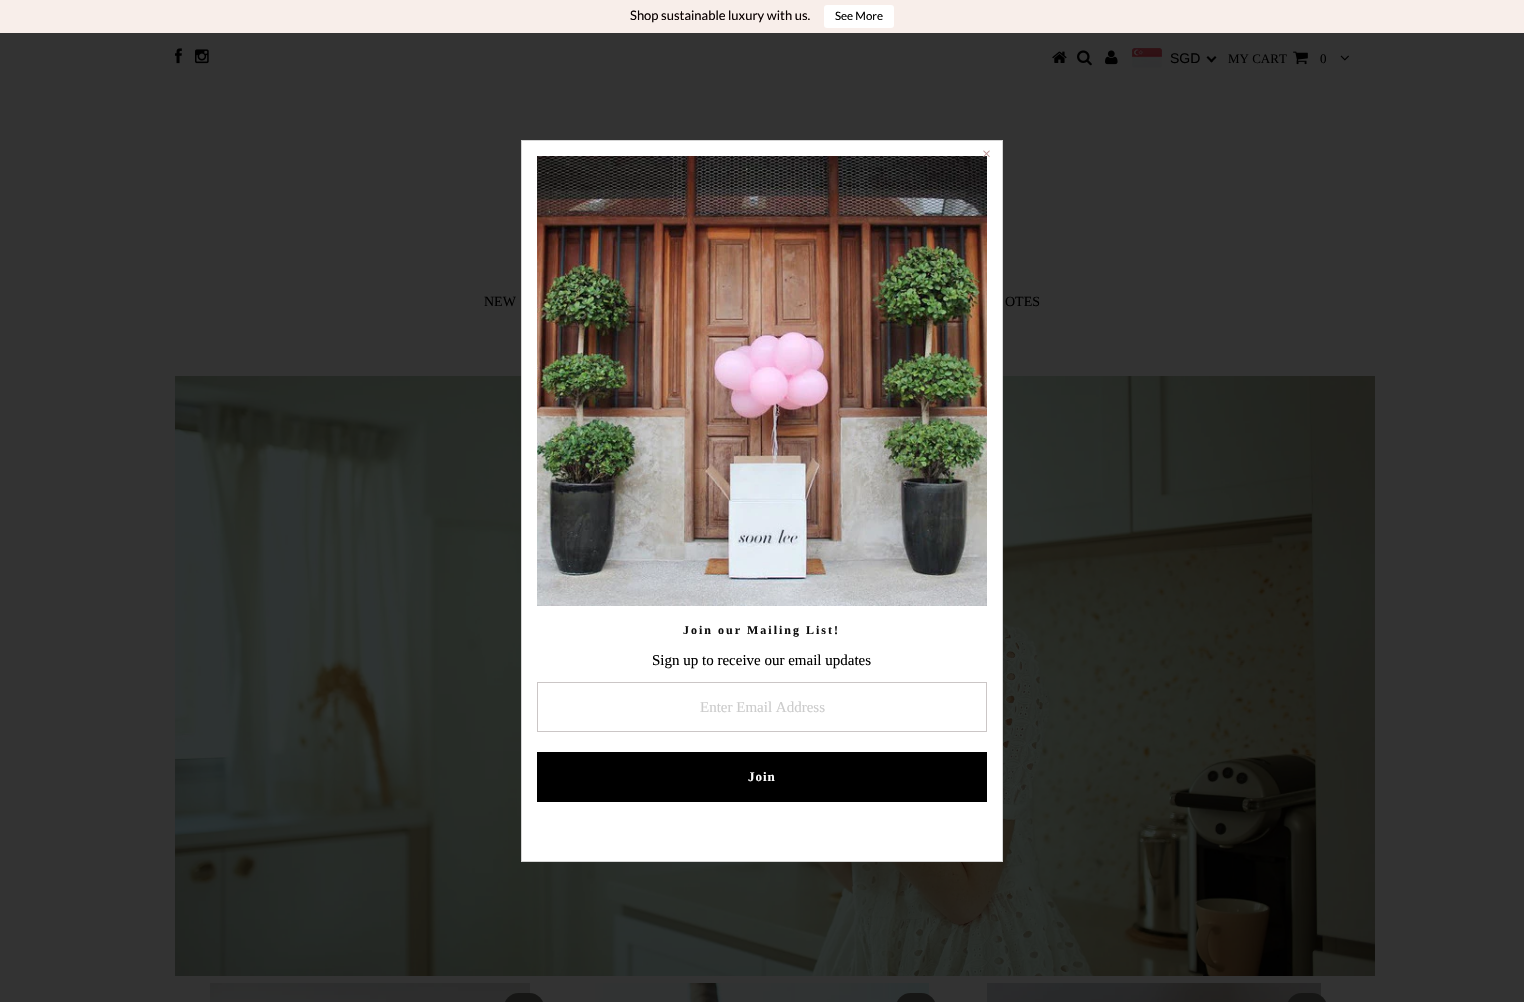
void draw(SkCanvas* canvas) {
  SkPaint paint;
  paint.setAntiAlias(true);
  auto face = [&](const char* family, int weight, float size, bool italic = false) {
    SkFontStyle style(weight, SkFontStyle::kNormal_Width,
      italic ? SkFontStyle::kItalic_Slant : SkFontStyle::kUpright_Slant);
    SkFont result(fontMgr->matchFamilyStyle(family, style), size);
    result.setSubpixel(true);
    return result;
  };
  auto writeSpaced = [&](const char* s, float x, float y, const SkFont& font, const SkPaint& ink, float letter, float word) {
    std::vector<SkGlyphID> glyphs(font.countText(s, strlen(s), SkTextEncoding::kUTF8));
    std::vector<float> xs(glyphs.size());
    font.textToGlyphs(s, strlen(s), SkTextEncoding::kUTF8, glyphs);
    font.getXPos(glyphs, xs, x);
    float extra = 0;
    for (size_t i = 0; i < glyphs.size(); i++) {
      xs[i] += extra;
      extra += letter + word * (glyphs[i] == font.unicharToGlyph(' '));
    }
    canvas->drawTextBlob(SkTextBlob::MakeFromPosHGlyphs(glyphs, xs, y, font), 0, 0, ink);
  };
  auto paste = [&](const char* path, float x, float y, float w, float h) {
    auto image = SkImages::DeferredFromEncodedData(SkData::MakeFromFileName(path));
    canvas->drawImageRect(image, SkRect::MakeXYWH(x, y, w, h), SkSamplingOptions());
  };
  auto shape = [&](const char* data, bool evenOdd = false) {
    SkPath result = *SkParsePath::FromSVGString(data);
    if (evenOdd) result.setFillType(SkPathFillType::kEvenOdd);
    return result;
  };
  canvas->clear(0xff333333);
  paint.setColor(0xfff8eeea);
  canvas->drawRect(SkRect::MakeXYWH(0, 0, 1524, 33), paint);
  paint.setColor(0xffffffff);
  canvas->drawRoundRect(SkRect::MakeXYWH(824, 5, 70, 23), 3, 3, paint);
  paste("img/1.png", 175, 48, 7, 16);
  paste("img/2.png", 195, 49, 14, 15);
  paste("img/3.png", 1052, 51, 15, 12);
  paste("img/4.png", 1077, 50, 15, 16);
  paste("img/5.png", 1105, 50, 13, 15);
  paste("img/6.png", 1132, 48, 30, 20);
  paint.setColor(0xff000000);
  canvas->drawPath(shape("M1215 56L1216.5 57.5L1211.5 62.5L1210 61Z"), paint);
  canvas->drawPath(shape("M1208 56L1213 61L1211.5 62.5L1206.5 57.5Z"), paint);
  paste("img/7.png", 1293, 51, 15, 14);
  paste("img/8.png", 1340, 55, 9, 6);
  paste("img/9.png", 175, 376, 1200, 600);
  paste("img/10.png", 210, 983, 320, 19);
  paint.setColor(0xff161615);
  canvas->drawRoundRect(SkRect::MakeXYWH(504, 993, 40, 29), 20, 20, paint);
  paste("img/11.png", 595, 983, 334, 19);
  canvas->drawRoundRect(SkRect::MakeXYWH(896, 993, 40, 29), 20, 20, paint);
  paste("img/12.png", 987, 983, 334, 19);
  canvas->drawRoundRect(SkRect::MakeXYWH(1287, 993, 40, 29), 20, 20, paint);
  paint.setColor(0xffffffff);
  canvas->drawRect(SkRect::MakeXYWH(521.5f, 140.5f, 481, 721), paint);
  paint.setStroke(true);
  paint.setStrokeWidth(1);
  paint.setColor(0xffd5d5d5);
  canvas->drawRect(SkRect::MakeXYWH(521.5f, 140.5f, 481, 721), paint);
  paste("img/13.png", 537, 156, 450, 450);
  paint.setColor(0xffcbc6c6);
  canvas->drawRect(SkRect::MakeXYWH(537.5f, 682.5f, 449, 49), paint);
  paint.setStroke(false);
  paint.setColor(0xff000000);
  canvas->drawRect(SkRect::MakeXYWH(537, 752, 450, 50), paint);
  auto f0 = face("Lato", 400, 13);
  paint.setColor(0xff0a0000);
  canvas->drawString("Shop sustainable luxury with us.", 630, 20, f0, paint);
  auto f1 = face("Lato", 400, 11.5f);
  paint.setColor(0xff000000);
  canvas->drawString("See More", 835, 20, f1, paint);
  auto f2 = face("Liberation Sans", 400, 14);
  canvas->drawString("SGD", 1170, 63, f2, paint);
  auto f3 = face("Liberation Serif", 400, 13);
  canvas->drawString("MY CART", 1228, 63, f3, paint);
  canvas->drawString("0", 1320, 63, f3, paint);
  auto f4 = face("Liberation Serif", 400, 14);
  canvas->drawString("NEW", 484, 306, f4, paint);
  canvas->drawString("OTES", 1005, 306, f4, paint);
  auto f5 = face("Liberation Serif", 400, 16);
  paint.setColor(0xffc09494);
  canvas->drawString("×", 982, 159, f5, paint);
  auto f6 = face("Liberation Serif", 700, 12);
  paint.setColor(0xff0e0e0e);
  writeSpaced("Join our Mailing List!", 683, 634, f6, paint, 2, 0);
  auto f7 = face("Liberation Serif", 400, 15);
  paint.setColor(0xff000000);
  canvas->drawString("Sign up to receive our email updates", 652, 665, f7, paint);
  paint.setColor(0xffcccccc);
  canvas->drawString("Enter Email Address", 700, 712, f7, paint);
  auto f8 = face("Liberation Serif", 700, 13);
  paint.setColor(0xffffffff);
  writeSpaced("Join", 748, 781, f8, paint, 1, 0);
}
